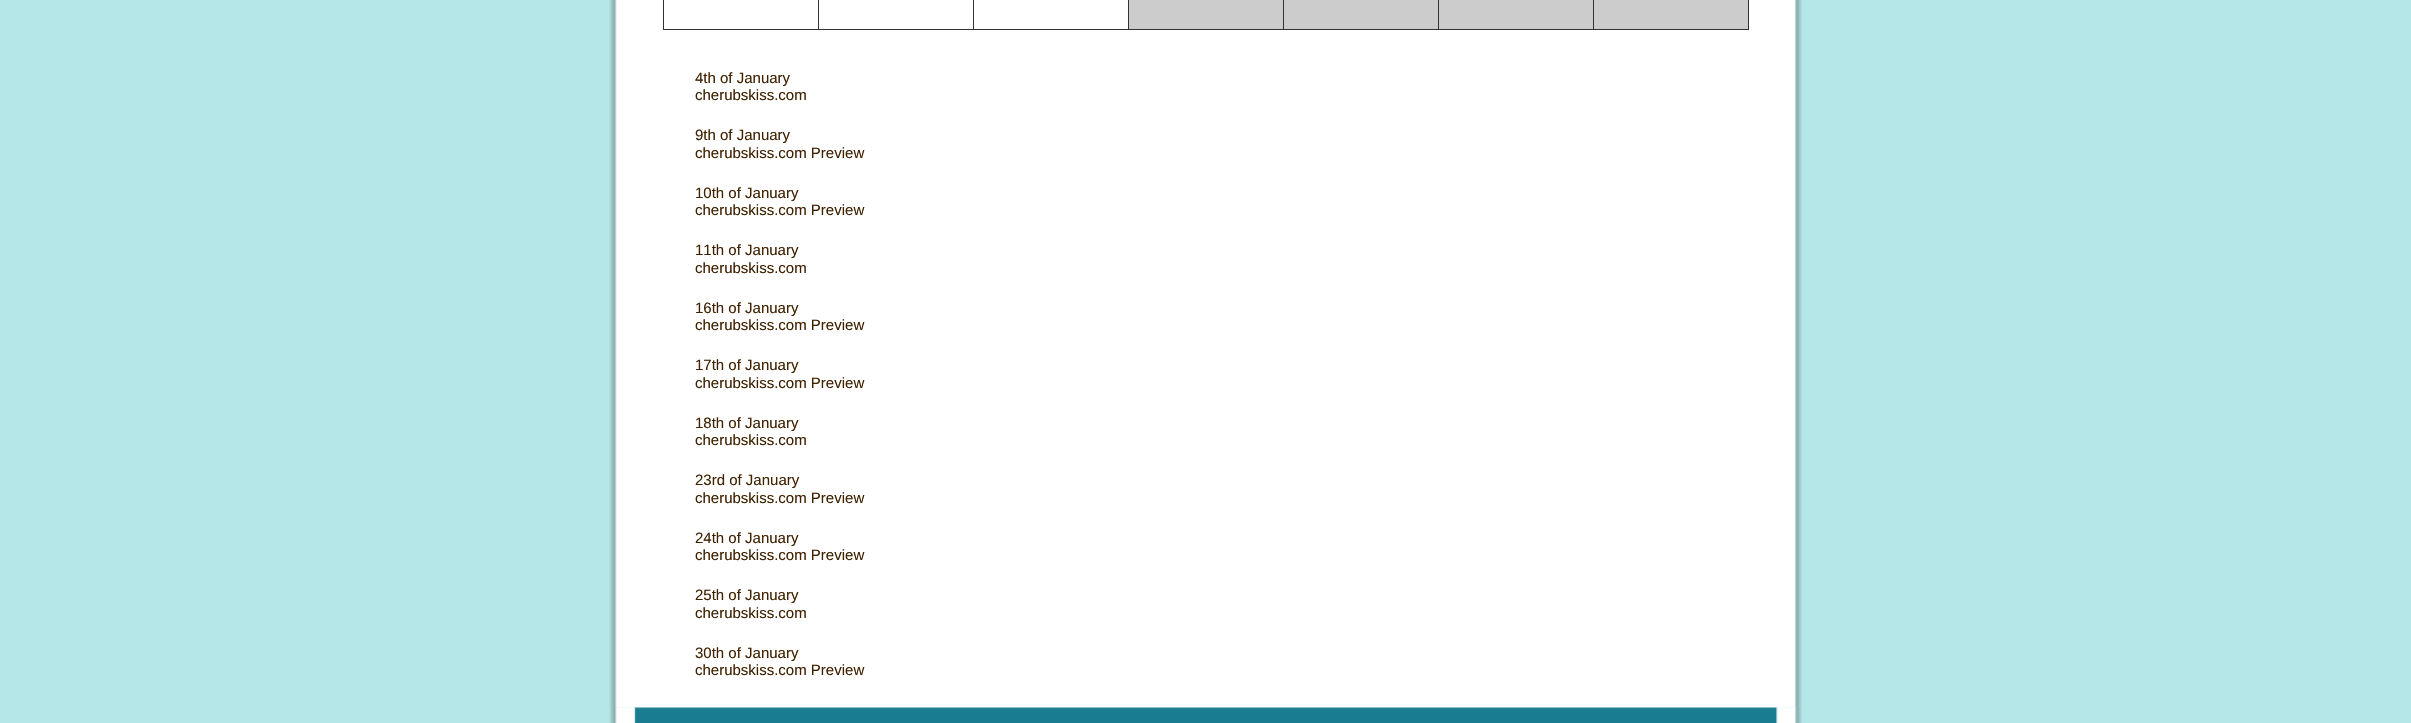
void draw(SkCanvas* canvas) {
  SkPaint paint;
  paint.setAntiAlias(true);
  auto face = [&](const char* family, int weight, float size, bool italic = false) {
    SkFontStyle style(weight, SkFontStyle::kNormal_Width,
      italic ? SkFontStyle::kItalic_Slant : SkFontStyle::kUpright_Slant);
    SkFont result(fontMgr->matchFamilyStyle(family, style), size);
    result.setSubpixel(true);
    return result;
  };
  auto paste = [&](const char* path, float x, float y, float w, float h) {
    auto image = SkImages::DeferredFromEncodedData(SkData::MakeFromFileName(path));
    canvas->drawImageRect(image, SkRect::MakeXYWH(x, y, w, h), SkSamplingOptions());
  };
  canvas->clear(0xffb6e7e8);
  paste("img/1.png", 609, 0, 1193, 708);
  {
    const struct { float x, y, w, h; SkColor color; } items[] = {
      {1748, 0, 1, 30, 0xff333333},
      {663, 29, 1086, 1, 0xff333333},
      {663, 0, 1, 30, 0xff333333},
      {818, 0, 1, 30, 0xff333333},
      {973, 0, 1, 30, 0xff333333},
      {1129, 0, 154, 29, 0xffcccccc},
      {1128, 0, 1, 30, 0xff333333},
      {1284, 0, 154, 29, 0xffcccccc},
      {1283, 0, 1, 30, 0xff333333},
      {1439, 0, 154, 29, 0xffcccccc},
      {1438, 0, 1, 30, 0xff333333},
      {1594, 0, 154, 29, 0xffcccccc},
      {1593, 0, 1, 30, 0xff333333},
    };
    for (auto [x, y, w, h, color] : items) {
      paint.setColor(color);
      canvas->drawRect(SkRect::MakeXYWH(x, y, w, h), paint);
    }
  }
  paste("img/2.png", 609, 707, 1193, 16);
  auto f0 = face("Liberation Sans", 400, 15);
  paint.setColor(0xff402100);
  {
    const struct { const char* s; float x, y; } items[] = {
      {"4th of January", 695, 83},
      {"cherubskiss.com", 695, 100},
      {"9th of January", 695, 140},
      {"cherubskiss.com Preview", 695, 158},
      {"10th of January", 695, 198},
      {"cherubskiss.com Preview", 695, 215},
      {"11th of January", 695, 255},
      {"cherubskiss.com", 695, 273},
      {"16th of January", 695, 313},
      {"cherubskiss.com Preview", 695, 330},
      {"17th of January", 695, 370},
      {"cherubskiss.com Preview", 695, 388},
      {"18th of January", 695, 428},
      {"cherubskiss.com", 695, 445},
      {"23rd of January", 695, 485},
      {"cherubskiss.com Preview", 695, 503},
      {"24th of January", 695, 543},
      {"cherubskiss.com Preview", 695, 560},
      {"25th of January", 695, 600},
      {"cherubskiss.com", 695, 618},
      {"30th of January", 695, 658},
      {"cherubskiss.com Preview", 695, 675},
    };
    for (auto [s, x, y] : items) {
      canvas->drawString(s, x, y, f0, paint);
    }
  }
}
